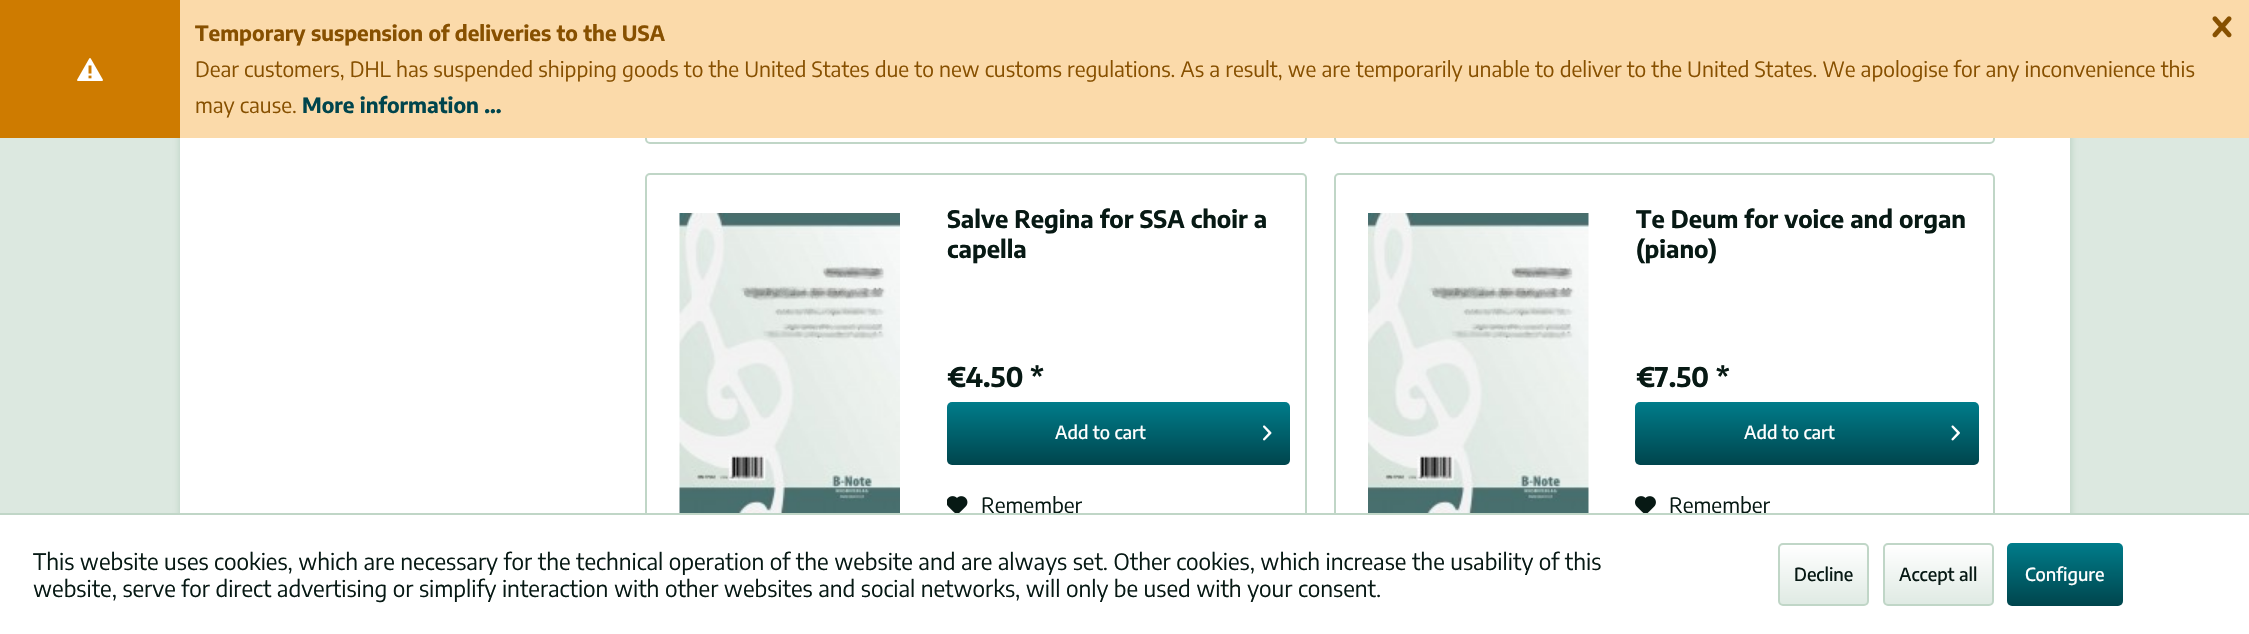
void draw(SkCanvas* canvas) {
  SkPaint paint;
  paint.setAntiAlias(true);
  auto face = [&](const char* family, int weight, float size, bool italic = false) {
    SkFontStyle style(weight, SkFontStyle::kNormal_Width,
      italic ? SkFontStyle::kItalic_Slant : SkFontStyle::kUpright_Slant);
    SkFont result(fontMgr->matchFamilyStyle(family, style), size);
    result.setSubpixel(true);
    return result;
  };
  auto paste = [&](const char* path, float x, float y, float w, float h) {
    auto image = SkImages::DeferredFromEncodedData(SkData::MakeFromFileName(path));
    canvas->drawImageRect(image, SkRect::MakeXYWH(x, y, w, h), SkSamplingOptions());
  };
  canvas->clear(0xffdce8e0);
  paint.setColor(0xffc0d6c7);
  paint.setMaskFilter(SkMaskFilter::MakeBlur(kNormal_SkBlurStyle, 3));
  canvas->drawRect(SkRect::MakeXYWH(179, -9, 1893, 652), paint);
  paint.setMaskFilter(nullptr);
  paint.setColor(0xffffffff);
  canvas->drawRect(SkRect::MakeXYWH(180, 138, 1890, 375), paint);
  paint.setStroke(true);
  paint.setStrokeWidth(2);
  paint.setColor(0xffc0d6c7);
  canvas->drawRoundRect(SkRect::MakeXYWH(646, -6, 660, 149), 4, 4, paint);
  canvas->drawRoundRect(SkRect::MakeXYWH(1335, -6, 659, 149), 4, 4, paint);
  paint.setStroke(false);
  paint.setColor(0xfffbdaaa);
  canvas->drawRect(SkRect::MakeXYWH(180, 0, 2069, 138), paint);
  paint.setColor(0xffce7b00);
  canvas->drawRect(SkRect::MakeXYWH(0, 0, 180, 138), paint);
  paste("img/1.png", 77, 58, 26, 23);
  paste("img/2.png", 2212, 16, 20, 22);
  paint.setStroke(true);
  paint.setColor(0xffc0d6c7);
  canvas->drawRoundRect(SkRect::MakeXYWH(646, 174, 660, 380), 4, 4, paint);
  paste("img/3.png", 679, 213, 221, 300);
  paint.setStroke(false);
  {
    const SkColor colors[] = {0xff007c8a, 0xff00454d};
    const float stops[] = {0, 1};
    const SkPoint ends[] = {{1118, 402}, {1118, 465}};
    paint.setShader(SkGradientShader::MakeLinear(ends, colors, stops, 2, SkTileMode::kClamp));
    paint.setAlpha(255);
  }
  canvas->drawRoundRect(SkRect::MakeXYWH(947, 402, 343, 63), 5, 5, paint);
  paste("img/4.png", 1263, 425, 9, 16);
  paste("img/5.png", 947, 496, 21, 17);
  paint.setStroke(true);
  paint.setShader(nullptr);
  paint.setColor(0xffc0d6c7);
  canvas->drawRoundRect(SkRect::MakeXYWH(1335, 174, 659, 380), 4, 4, paint);
  paste("img/6.png", 1368, 213, 221, 300);
  paint.setStroke(false);
  {
    const SkColor colors[] = {0xff007c8a, 0xff00454d};
    const float stops[] = {0, 1};
    const SkPoint ends[] = {{1807, 402}, {1807, 465}};
    paint.setShader(SkGradientShader::MakeLinear(ends, colors, stops, 2, SkTileMode::kClamp));
    paint.setAlpha(255);
  }
  canvas->drawRoundRect(SkRect::MakeXYWH(1635, 402, 344, 63), 5, 5, paint);
  paste("img/7.png", 1951, 425, 9, 16);
  paste("img/8.png", 1635, 496, 21, 17);
  paint.setShader(nullptr);
  paint.setColor(0xffffffff);
  canvas->drawRect(SkRect::MakeXYWH(0, 515, 2249, 119), paint);
  {
    const SkColor colors[] = {0xffffffff, 0xffdfeae3};
    const float stops[] = {0, 1};
    const SkPoint ends[] = {{1823, 545}, {1823, 605}};
    paint.setShader(SkGradientShader::MakeLinear(ends, colors, stops, 2, SkTileMode::kClamp));
    paint.setAlpha(255);
  }
  canvas->drawRoundRect(SkRect::MakeXYWH(1779, 545, 89, 60), 3, 3, paint);
  paint.setStroke(true);
  paint.setShader(nullptr);
  paint.setColor(0xffc0d6c7);
  canvas->drawRoundRect(SkRect::MakeXYWH(1779, 544, 89, 61), 4, 4, paint);
  paint.setStroke(false);
  {
    const SkColor colors[] = {0xffffffff, 0xffdfeae3};
    const float stops[] = {0, 1};
    const SkPoint ends[] = {{1938, 545}, {1938, 605}};
    paint.setShader(SkGradientShader::MakeLinear(ends, colors, stops, 2, SkTileMode::kClamp));
    paint.setAlpha(255);
  }
  canvas->drawRoundRect(SkRect::MakeXYWH(1884, 545, 108, 60), 3, 3, paint);
  paint.setStroke(true);
  paint.setShader(nullptr);
  paint.setColor(0xffc0d6c7);
  canvas->drawRoundRect(SkRect::MakeXYWH(1884, 544, 109, 61), 4, 4, paint);
  paint.setStroke(false);
  {
    const SkColor colors[] = {0xff007c8a, 0xff00454d};
    const float stops[] = {0, 1};
    const SkPoint ends[] = {{2065, 543}, {2065, 606}};
    paint.setShader(SkGradientShader::MakeLinear(ends, colors, stops, 2, SkTileMode::kClamp));
    paint.setAlpha(255);
  }
  canvas->drawRoundRect(SkRect::MakeXYWH(2007, 543, 116, 63), 5, 5, paint);
  auto f0 = face("Encode Sans", 700, 21);
  paint.setShader(nullptr);
  paint.setColor(0xff875000);
  canvas->drawString("Temporary suspension of deliveries to the USA", 195, 41, f0, paint);
  auto f1 = face("Encode Sans", 400, 21);
  canvas->drawString("Dear customers, DHL has suspended shipping goods to the United States due to new customs regulations. As a result, we are temporarily unable to deliver to the United States. We apologise for any inconvenience this", 195, 77, f1, paint);
  canvas->drawString("may cause.", 195, 113, f1, paint);
  paint.setColor(0xff00454d);
  canvas->drawString("More information ...", 302, 113, f0, paint);
  auto f2 = face("Encode Sans", 700, 24);
  paint.setColor(0xff071914);
  canvas->drawString("Salve Regina for SSA choir a", 947, 228, f2, paint);
  canvas->drawString("capella", 947, 258, f2, paint);
  auto f3 = face("Encode Sans", 700, 27);
  canvas->drawString("€4.50 *", 947, 387, f3, paint);
  auto f4 = face("Encode Sans", 500, 18);
  paint.setColor(0xffffffff);
  canvas->drawString("Add to cart", 1055, 439, f4, paint);
  paint.setColor(0xff071914);
  canvas->drawString("Remember", 981, 513, f1, paint);
  canvas->drawString("Te Deum for voice and organ", 1636, 228, f2, paint);
  canvas->drawString("(piano)", 1636, 258, f2, paint);
  canvas->drawString("€7.50 *", 1636, 387, f3, paint);
  paint.setColor(0xffffffff);
  canvas->drawString("Add to cart", 1744, 439, f4, paint);
  paint.setColor(0xff071914);
  canvas->drawString("Remember", 1669, 513, f1, paint);
  paint.setColor(0xffc0d6c7);
  canvas->drawRect(SkRect::MakeXYWH(0, 513, 2249, 2), paint);
  auto f5 = face("Encode Sans", 400, 22.5f);
  paint.setColor(0xff071914);
  canvas->drawString("This website uses cookies, which are necessary for the technical operation of the website and are always set. Other cookies, which increase the usability of this", 33, 570, f5, paint);
  canvas->drawString("website, serve for direct advertising or simplify interaction with other websites and social networks, will only be used with your consent.", 33, 597, f5, paint);
  canvas->drawString("Decline", 1794, 581, f4, paint);
  canvas->drawString("Accept all", 1899, 581, f4, paint);
  paint.setColor(0xffffffff);
  canvas->drawString("Configure", 2025, 581, f4, paint);
}
